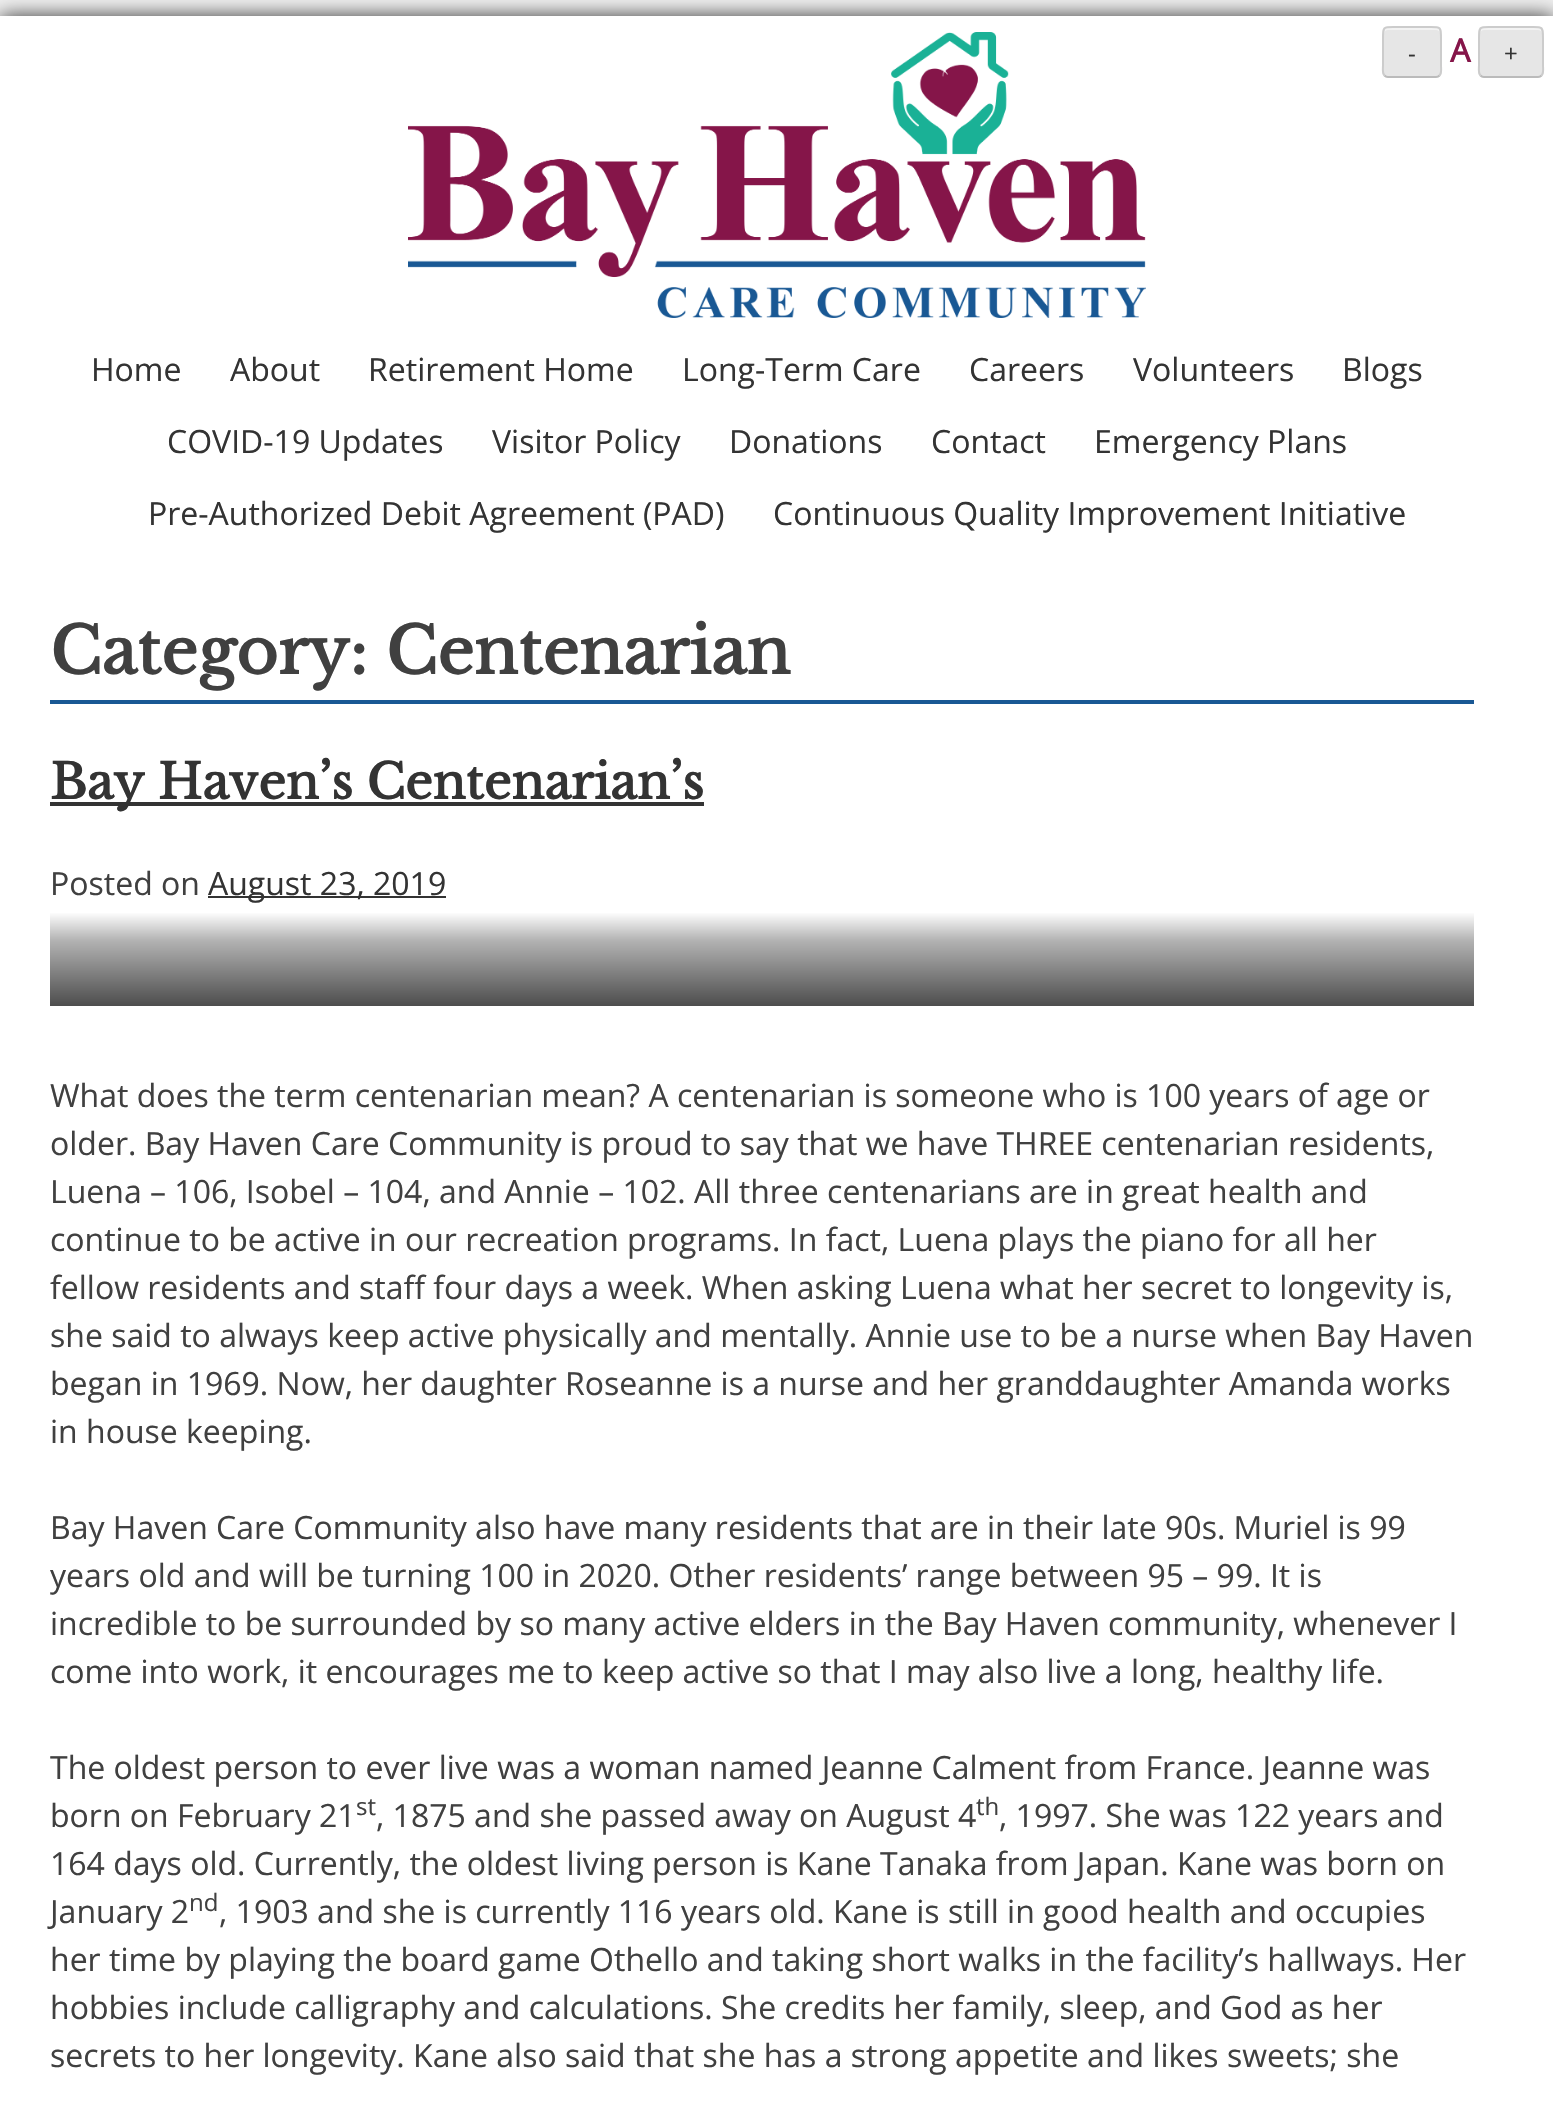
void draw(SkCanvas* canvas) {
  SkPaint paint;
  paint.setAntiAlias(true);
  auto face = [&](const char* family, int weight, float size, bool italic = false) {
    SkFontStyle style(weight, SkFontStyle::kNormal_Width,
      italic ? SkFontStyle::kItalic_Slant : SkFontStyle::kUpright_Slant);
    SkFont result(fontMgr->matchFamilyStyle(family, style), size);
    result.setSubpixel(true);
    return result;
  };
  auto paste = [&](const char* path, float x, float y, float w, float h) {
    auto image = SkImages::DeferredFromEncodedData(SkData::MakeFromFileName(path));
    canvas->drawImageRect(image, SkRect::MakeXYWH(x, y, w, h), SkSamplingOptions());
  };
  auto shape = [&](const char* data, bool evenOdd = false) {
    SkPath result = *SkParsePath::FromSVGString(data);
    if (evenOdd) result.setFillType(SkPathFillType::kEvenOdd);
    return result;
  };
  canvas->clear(0xfff1f1f1);
  paint.setColor(0xff333333);
  paint.setMaskFilter(SkMaskFilter::MakeBlur(kNormal_SkBlurStyle, 10));
  canvas->drawRect(SkRect::MakeXYWH(0, 16, 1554, 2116), paint);
  paint.setMaskFilter(nullptr);
  paint.setColor(0xffffffff);
  canvas->drawRect(SkRect::MakeXYWH(0, 16, 1553, 2086), paint);
  paste("img/1.png", 408, 32, 738, 286);
  paint.setColor(0xffe6e6e6);
  canvas->drawRoundRect(SkRect::MakeXYWH(1382, 26, 60, 52), 6, 6, paint);
  paint.setColor(0xfff3f3f3);
  canvas->drawPath(shape("M1388 30H1436C1438 30 1440 32 1440 34C1440 26 1435 28 1428 28H1396C1389 28 1384 26 1384 34C1384 32 1386 30 1388 30Z"), paint);
  paint.setStroke(true);
  paint.setStrokeWidth(2);
  paint.setColor(0xffbbbbbb);
  canvas->drawPath(shape("M1439.5 75.5C1438.5 76.5 1437.5 77 1436 77H1388C1386.5 77 1385.5 76.5 1384.5 75.5"), paint);
  paint.setColor(0xffcccccc);
  canvas->drawPath(shape("M1384.5 75.5C1382 73 1383 68 1383 65.5V38.5C1383 26 1383.5 27 1396 27H1428C1440.5 27 1441 26 1441 38.5V65.5C1441 68 1442 73 1439.5 75.5"), paint);
  paint.setStroke(false);
  paint.setColor(0xffe6e6e6);
  canvas->drawRoundRect(SkRect::MakeXYWH(1478, 26, 66, 52), 6, 6, paint);
  paint.setColor(0xfff3f3f3);
  canvas->drawPath(shape("M1484 30H1538C1540 30 1542 32 1542 34C1542 26 1536 28 1529 28H1493C1486 28 1480 26 1480 34C1480 32 1482 30 1484 30Z"), paint);
  paint.setStroke(true);
  paint.setColor(0xffbbbbbb);
  canvas->drawPath(shape("M1541.5 75.5C1540.5 76.5 1539.5 77 1538 77H1484C1482.5 77 1481.5 76.5 1480.5 75.5"), paint);
  paint.setColor(0xffcccccc);
  canvas->drawPath(shape("M1480.5 75.5C1478 73 1479 68 1479 65.5V38.5C1479 25.5 1480 27 1493 27H1529C1542 27 1543 25.5 1543 38.5V65.5C1543 68 1544 73 1541.5 75.5"), paint);
  paint.setStroke(false);
  {
    const struct { float x, y, w, h; SkColor color; } items[] = {
      {50, 700, 1424, 4, 0xff195894},
      {50, 802, 654, 4, 0xff333333},
      {208, 896, 238, 2, 0xff333333},
    };
    for (auto [x, y, w, h, color] : items) {
      paint.setColor(color);
      canvas->drawRect(SkRect::MakeXYWH(x, y, w, h), paint);
    }
  }
  {
    const SkColor colors[] = {0xff4d4d4d, 0xffb3b3b3, 0xffffffff};
    const float stops[] = {0, 0.7f, 1};
    const SkPoint ends[] = {{762, 1006}, {762, 912}};
    paint.setShader(SkGradientShader::MakeLinear(ends, colors, stops, 3, SkTileMode::kClamp));
    paint.setAlpha(255);
  }
  canvas->drawRect(SkRect::MakeXYWH(50, 913, 1424, 93), paint);
  auto f0 = face("Open Sans", 400, 24);
  paint.setShader(nullptr);
  paint.setColor(0xff333333);
  canvas->drawString("-", 1408, 62, f0, paint);
  auto f1 = face("Open Sans", 700, 32);
  paint.setColor(0xff851549);
  canvas->drawString("A", 1450, 62, f1, paint);
  paint.setColor(0xff333333);
  canvas->drawString("+", 1504, 62, f0, paint);
  auto f2 = face("Open Sans", 400, 32);
  {
    const struct { const char* s; float x, y; } items[] = {
      {"Home", 91, 381},
      {"About", 230, 381},
      {"Retirement Home", 368, 381},
      {"Long-Term Care", 682, 381},
      {"Careers", 969, 381},
      {"Volunteers", 1133, 381},
      {"Blogs", 1342, 381},
      {"COVID-19 Updates", 167, 453},
      {"Visitor Policy", 492, 453},
      {"Donations", 729, 453},
      {"Contact", 931, 453},
      {"Emergency Plans", 1094, 453},
      {"Pre-Authorized Debit Agreement (PAD)", 148, 525},
      {"Continuous Quality Improvement Initiative", 773, 525},
    };
    for (auto [s, x, y] : items) {
      canvas->drawString(s, x, y, f2, paint);
    }
  }
  auto f3 = face("Libre Baskerville", 700, 64);
  paint.setColor(0xff404040);
  canvas->drawString("Category: Centenarian", 50, 674, f3, paint);
  auto f4 = face("Libre Baskerville", 700, 48);
  paint.setColor(0xff333333);
  canvas->drawString("Bay Haven’s Centenarian’s", 50, 799, f4, paint);
  paint.setColor(0xff404040);
  canvas->drawString("Posted on", 50, 895, f2, paint);
  paint.setColor(0xff333333);
  canvas->drawString("August 23, 2019", 208, 895, f2, paint);
  paint.setColor(0xff404040);
  {
    const struct { const char* s; float x, y; } items[] = {
      {"What does the term centenarian mean? A centenarian is someone who is 100 years of age or", 50, 1107},
      {"older. Bay Haven Care Community is proud to say that we have THREE centenarian residents,", 50, 1155},
      {"Luena – 106, Isobel – 104, and Annie – 102. All three centenarians are in great health and", 50, 1203},
      {"continue to be active in our recreation programs. In fact, Luena plays the piano for all her", 50, 1251},
      {"fellow residents and staff four days a week. When asking Luena what her secret to longevity is,", 50, 1299},
      {"she said to always keep active physically and mentally. Annie use to be a nurse when Bay Haven", 50, 1347},
      {"began in 1969. Now, her daughter Roseanne is a nurse and her granddaughter Amanda works", 50, 1395},
      {"in house keeping.", 50, 1443},
      {"Bay Haven Care Community also have many residents that are in their late 90s. Muriel is 99", 50, 1539},
      {"years old and will be turning 100 in 2020. Other residents’ range between 95 – 99. It is", 50, 1587},
      {"incredible to be surrounded by so many active elders in the Bay Haven community, whenever I", 50, 1635},
      {"come into work, it encourages me to keep active so that I may also live a long, healthy life.", 50, 1683},
      {"The oldest person to ever live was a woman named Jeanne Calment from France. Jeanne was", 50, 1779},
      {"born on February 21", 50, 1827},
    };
    for (auto [s, x, y] : items) {
      canvas->drawString(s, x, y, f2, paint);
    }
  }
  canvas->drawString("st", 356, 1815, f0, paint);
  canvas->drawString(", 1875 and she passed away on August 4", 376, 1827, f2, paint);
  canvas->drawString("th", 976, 1815, f0, paint);
  {
    const struct { const char* s; float x, y; } items[] = {
      {", 1997. She was 122 years and", 999, 1827},
      {"164 days old. Currently, the oldest living person is Kane Tanaka from Japan. Kane was born on", 50, 1875},
      {"January 2", 50, 1923},
    };
    for (auto [s, x, y] : items) {
      canvas->drawString(s, x, y, f2, paint);
    }
  }
  canvas->drawString("nd", 189, 1911, f0, paint);
  {
    const struct { const char* s; float x, y; } items[] = {
      {", 1903 and she is currently 116 years old. Kane is still in good health and occupies", 219, 1923},
      {"her time by playing the board game Othello and taking short walks in the facility’s hallways. Her", 50, 1971},
      {"hobbies include calligraphy and calculations. She credits her family, sleep, and God as her", 50, 2019},
      {"secrets to her longevity. Kane also said that she has a strong appetite and likes sweets; she", 50, 2067},
    };
    for (auto [s, x, y] : items) {
      canvas->drawString(s, x, y, f2, paint);
    }
  }
}
